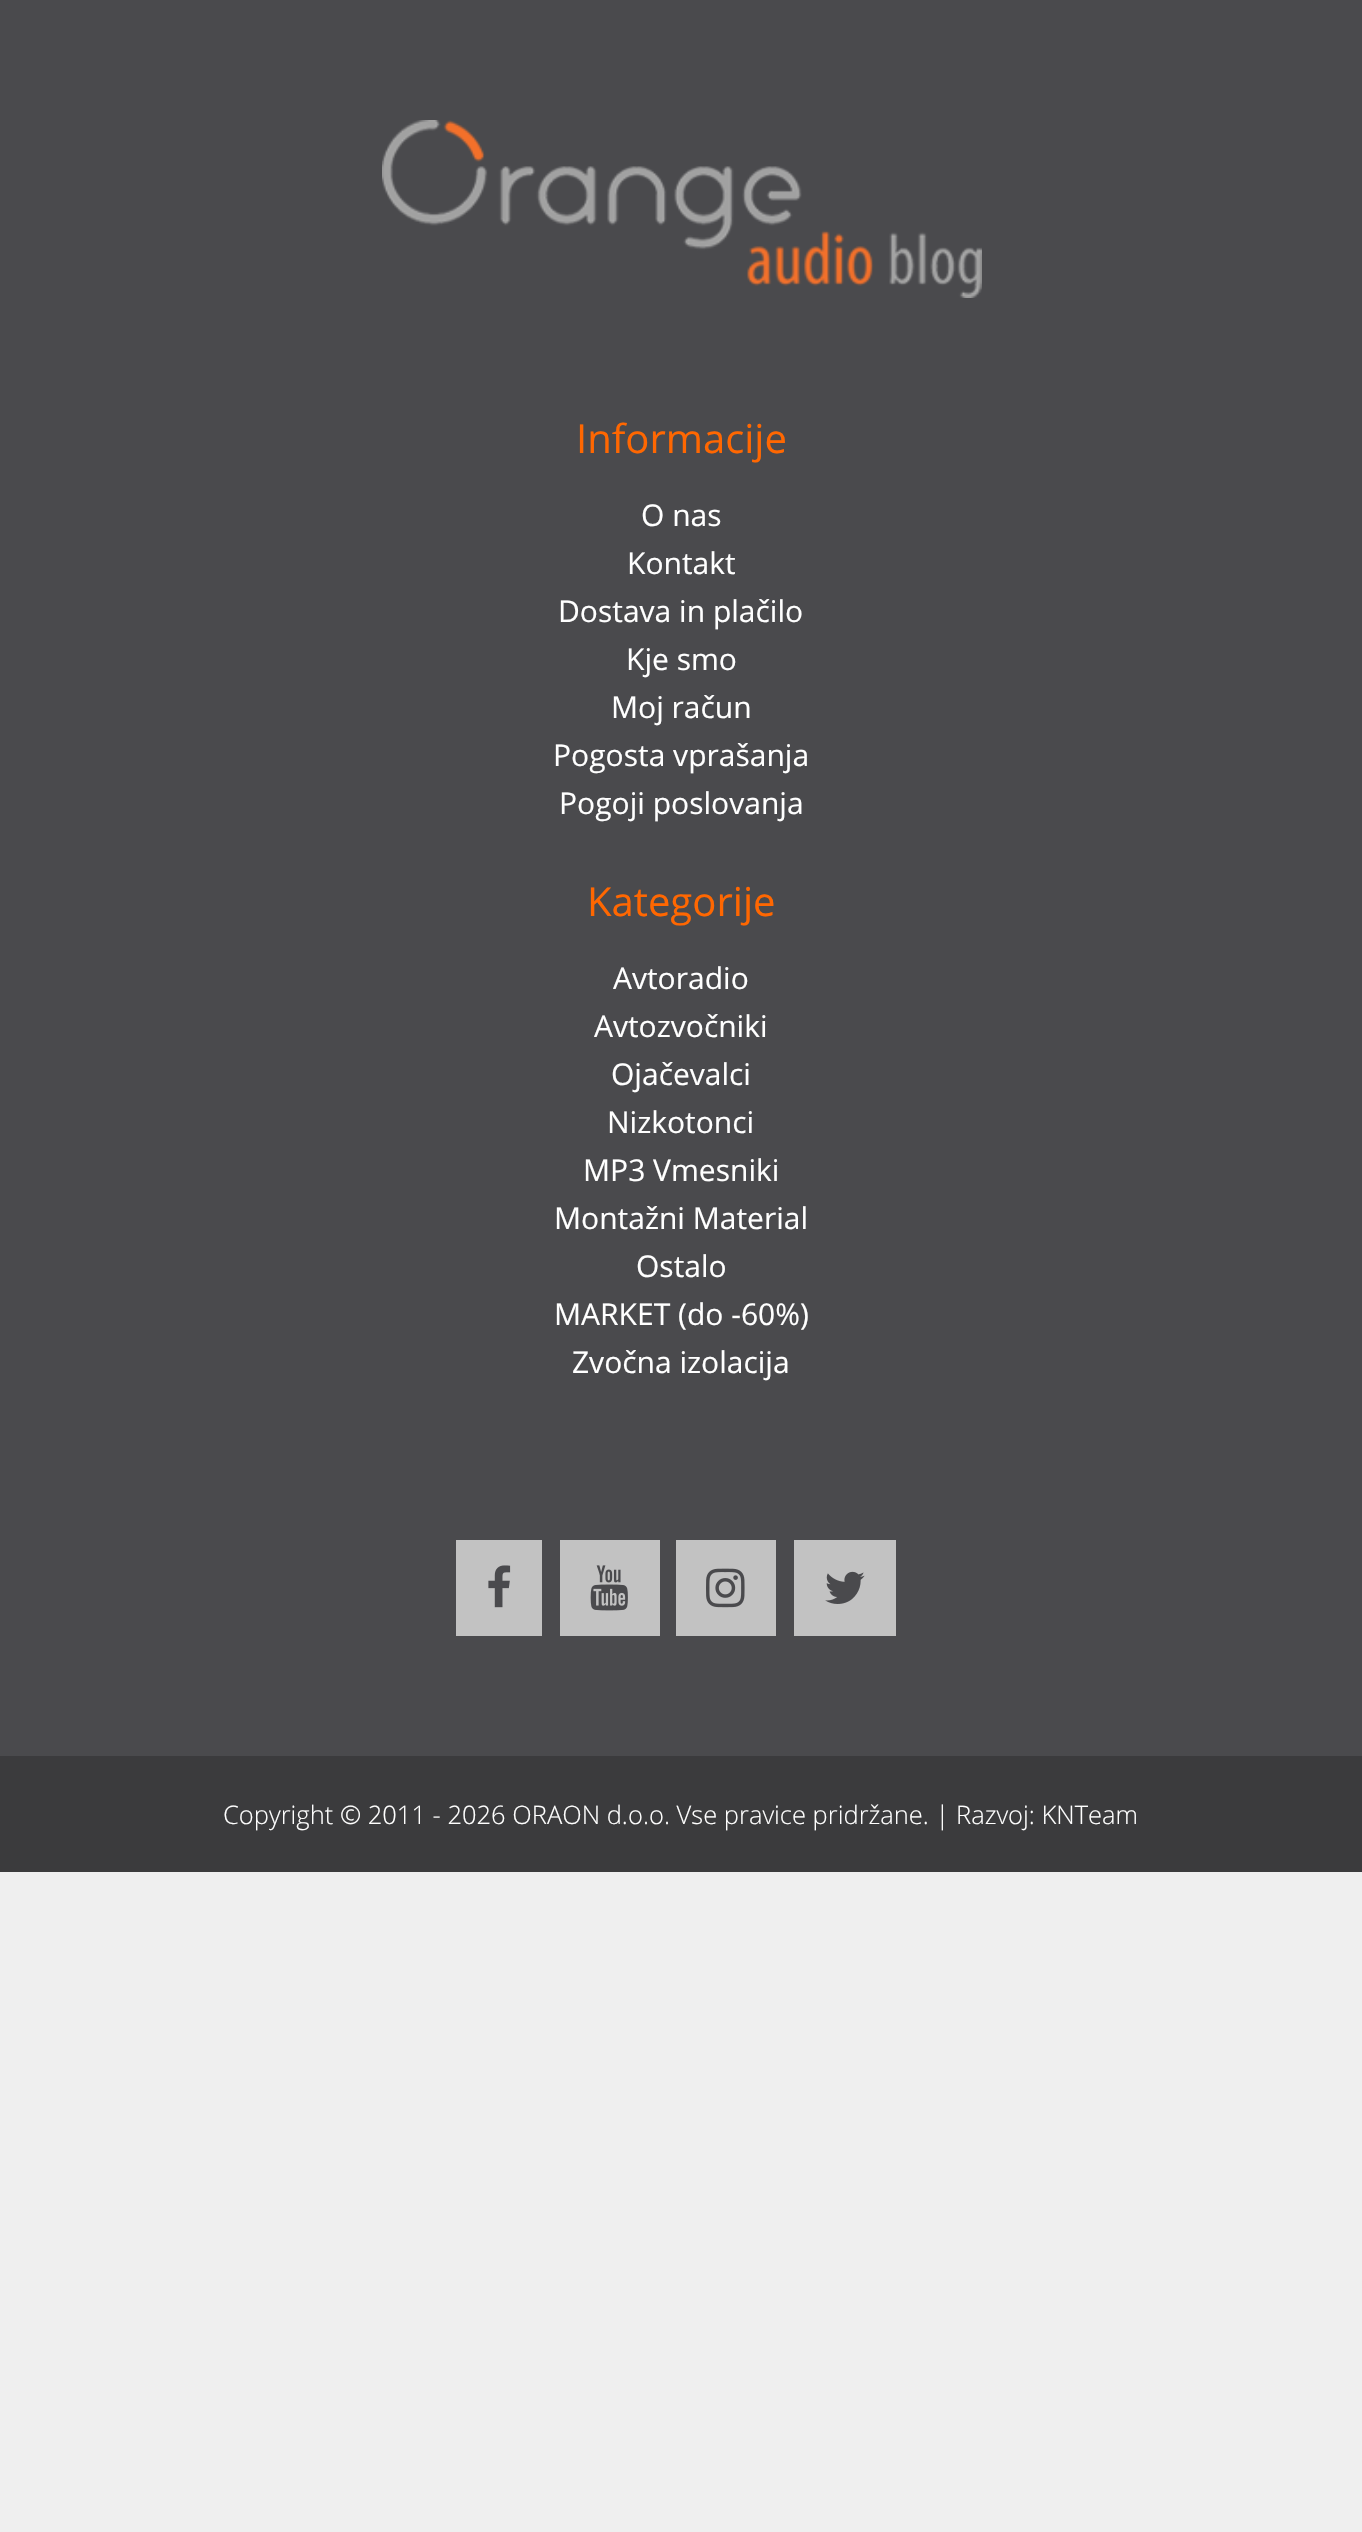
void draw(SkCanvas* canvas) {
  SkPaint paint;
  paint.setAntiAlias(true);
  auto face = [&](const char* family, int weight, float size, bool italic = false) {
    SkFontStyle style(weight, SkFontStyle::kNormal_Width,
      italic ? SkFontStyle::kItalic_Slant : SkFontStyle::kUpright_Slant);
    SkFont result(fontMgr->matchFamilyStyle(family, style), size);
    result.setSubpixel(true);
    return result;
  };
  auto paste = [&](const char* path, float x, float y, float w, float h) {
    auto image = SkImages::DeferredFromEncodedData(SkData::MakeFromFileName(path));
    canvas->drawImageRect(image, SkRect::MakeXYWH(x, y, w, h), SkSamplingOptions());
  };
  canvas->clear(0xffefefef);
  paint.setColor(0xff4a4a4d);
  canvas->drawRect(SkRect::MakeXYWH(0, 0, 1362, 1756), paint);
  paste("img/1.png", 382, 120, 600, 178);
  paint.setColor(0xffc2c2c2);
  canvas->drawRect(SkRect::MakeXYWH(456, 1540, 86, 96), paint);
  paste("img/2.png", 488, 1565, 23, 43);
  canvas->drawRect(SkRect::MakeXYWH(560, 1540, 100, 96), paint);
  paste("img/3.png", 590, 1565, 38, 46);
  canvas->drawRect(SkRect::MakeXYWH(676, 1540, 100, 96), paint);
  paste("img/4.png", 706, 1568, 39, 40);
  canvas->drawRect(SkRect::MakeXYWH(794, 1540, 102, 96), paint);
  paste("img/5.png", 825, 1571, 40, 33);
  paint.setColor(0xff3b3b3d);
  canvas->drawRect(SkRect::MakeXYWH(0, 1756, 1362, 116), paint);
  auto f0 = face("Open Sans", 400, 40);
  paint.setColor(0xffff6701);
  canvas->drawString("Informacije", 576, 453, f0, paint);
  auto f1 = face("Open Sans", 400, 30);
  paint.setColor(0xffffffff);
  {
    const struct { const char* s; float x, y; } items[] = {
      {"O nas", 641, 526},
      {"Kontakt", 627, 574},
      {"Dostava in plačilo", 558, 622},
      {"Kje smo", 626, 670},
      {"Moj račun", 611, 718},
      {"Pogosta vprašanja", 553, 766},
      {"Pogoji poslovanja", 559, 814},
    };
    for (auto [s, x, y] : items) {
      canvas->drawString(s, x, y, f1, paint);
    }
  }
  paint.setColor(0xffff6701);
  canvas->drawString("Kategorije", 587, 916, f0, paint);
  paint.setColor(0xffffffff);
  {
    const struct { const char* s; float x, y; } items[] = {
      {"Avtoradio", 613, 989},
      {"Avtozvočniki", 594, 1037},
      {"Ojačevalci", 611, 1085},
      {"Nizkotonci", 607, 1133},
      {"MP3 Vmesniki", 583, 1181},
      {"Montažni Material", 554, 1229},
      {"Ostalo", 636, 1277},
      {"MARKET (do -60%)", 554, 1325},
      {"Zvočna izolacija", 572, 1373},
    };
    for (auto [s, x, y] : items) {
      canvas->drawString(s, x, y, f1, paint);
    }
  }
  auto f2 = face("Open Sans", 300, 25.5f);
  canvas->drawString("Copyright © 2011 - 2026 ORAON d.o.o. Vse pravice pridržane. | Razvoj: KNTeam", 223, 1824, f2, paint);
}
